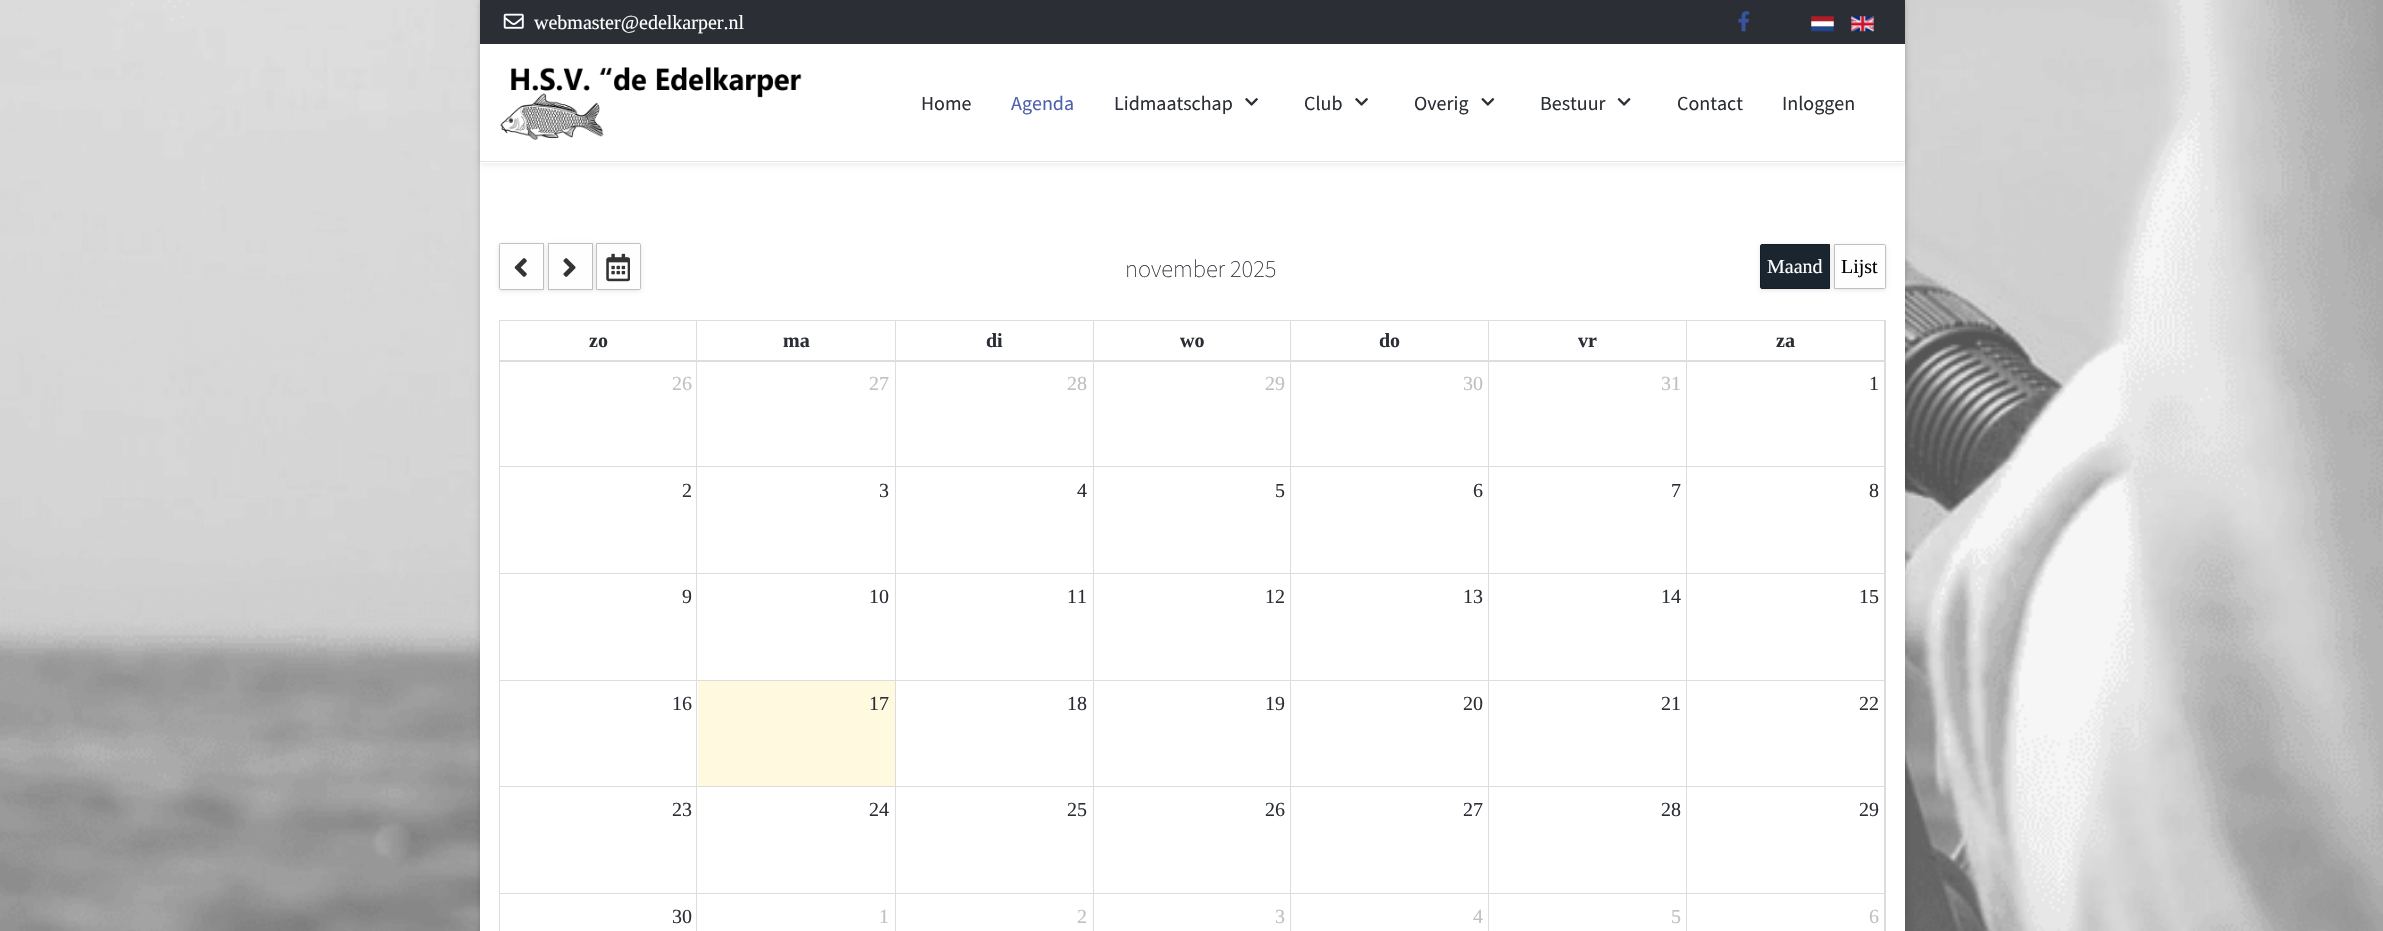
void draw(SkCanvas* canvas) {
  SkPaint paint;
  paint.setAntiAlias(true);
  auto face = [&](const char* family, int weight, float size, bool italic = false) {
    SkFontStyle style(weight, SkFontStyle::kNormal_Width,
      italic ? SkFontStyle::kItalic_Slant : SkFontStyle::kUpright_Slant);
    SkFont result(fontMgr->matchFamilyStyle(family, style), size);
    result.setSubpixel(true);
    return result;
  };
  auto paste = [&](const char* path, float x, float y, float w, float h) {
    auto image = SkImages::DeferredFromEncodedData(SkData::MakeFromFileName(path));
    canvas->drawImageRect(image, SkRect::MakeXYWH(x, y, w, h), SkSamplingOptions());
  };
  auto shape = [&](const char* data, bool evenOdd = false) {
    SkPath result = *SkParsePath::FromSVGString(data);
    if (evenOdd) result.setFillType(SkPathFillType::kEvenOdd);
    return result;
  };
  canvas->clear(0xffffffff);
  paste("img/1.png", 0, 0, 2383, 931);
  paint.setColor(0x33000000);
  paint.setMaskFilter(SkMaskFilter::MakeBlur(kNormal_SkBlurStyle, 3));
  canvas->drawRect(SkRect::MakeXYWH(480, 0, 1425, 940), paint);
  paint.setMaskFilter(nullptr);
  paint.setColor(0xffffffff);
  canvas->drawRect(SkRect::MakeXYWH(480, 163, 1425, 768), paint);
  paint.setColor(0xff2c2e36);
  canvas->drawRect(SkRect::MakeXYWH(480, 0, 1425, 44), paint);
  paste("img/2.png", 503, 13, 21, 16);
  paste("img/3.png", 1738, 11, 12, 21);
  paste("img/4.png", 1811, 16, 23, 16);
  paste("img/5.png", 1851, 16, 23, 16);
  paint.setColor(0x12000000);
  paint.setMaskFilter(SkMaskFilter::MakeBlur(kNormal_SkBlurStyle, 2.5f));
  canvas->drawRect(SkRect::MakeXYWH(480, 46, 1425, 119), paint);
  paint.setMaskFilter(nullptr);
  paint.setColor(0xffffffff);
  canvas->drawRect(SkRect::MakeXYWH(480, 44, 1425, 119), paint);
  paint.setColor(0xffdee2e6);
  canvas->drawRect(SkRect::MakeXYWH(480, 161, 1425, 1), paint);
  paste("img/6.png", 500, 67, 302, 73);
  paste("img/7.png", 1245, 98, 13, 8);
  paste("img/7.png", 1355, 98, 13, 8);
  paste("img/8.png", 1481, 98, 14, 8);
  paste("img/9.png", 1617, 98, 14, 8);
  paint.setColor(0x1a000000);
  paint.setMaskFilter(SkMaskFilter::MakeBlur(kNormal_SkBlurStyle, 2));
  canvas->drawRoundRect(SkRect::MakeXYWH(499, 244, 45, 47), 2, 2, paint);
  paint.setMaskFilter(nullptr);
  paint.setColor(0xfffefefe);
  canvas->drawPath(shape("M501 243.5H543.5V289.5H501C500 289.5 499.5 289 499.5 288V245C499.5 244 500 243.5 501 243.5Z"), paint);
  paint.setStroke(true);
  paint.setStrokeWidth(1);
  paint.setColor(0xffc0c0c0);
  canvas->drawPath(shape("M501 243.5H543.5V289.5H501C500 289.5 499.5 289 499.5 288V245C499.5 244 500 243.5 501 243.5Z"), paint);
  paste("img/10.png", 514, 258, 13, 19);
  paint.setStroke(false);
  paint.setColor(0x1a000000);
  paint.setMaskFilter(SkMaskFilter::MakeBlur(kNormal_SkBlurStyle, 2));
  canvas->drawRect(SkRect::MakeXYWH(548, 244, 45, 47), paint);
  paint.setMaskFilter(nullptr);
  paint.setColor(0xfffefefe);
  canvas->drawRect(SkRect::MakeXYWH(548.5f, 243.5f, 44, 46), paint);
  paint.setStroke(true);
  paint.setColor(0xffc0c0c0);
  canvas->drawRect(SkRect::MakeXYWH(548.5f, 243.5f, 44, 46), paint);
  paste("img/11.png", 563, 258, 13, 19);
  paint.setStroke(false);
  paint.setColor(0x1a000000);
  paint.setMaskFilter(SkMaskFilter::MakeBlur(kNormal_SkBlurStyle, 2));
  canvas->drawRoundRect(SkRect::MakeXYWH(596, 244, 45, 47), 2, 2, paint);
  paint.setMaskFilter(nullptr);
  paint.setColor(0xfffefefe);
  canvas->drawPath(shape("M596.5 243.5H639C640 243.5 640.5 244 640.5 245V288C640.5 289 640 289.5 639 289.5H596.5Z"), paint);
  paint.setStroke(true);
  paint.setColor(0xffc0c0c0);
  canvas->drawPath(shape("M596.5 243.5H639C640 243.5 640.5 244 640.5 245V288C640.5 289 640 289.5 639 289.5H596.5Z"), paint);
  paste("img/12.png", 606, 253, 24, 29);
  paint.setStroke(false);
  paint.setColor(0x1a000000);
  paint.setMaskFilter(SkMaskFilter::MakeBlur(kNormal_SkBlurStyle, 2));
  canvas->drawRoundRect(SkRect::MakeXYWH(1834, 245, 52, 45), 2, 2, paint);
  paint.setMaskFilter(nullptr);
  paint.setColor(0xfffefefe);
  canvas->drawPath(shape("M1834.5 244.5H1884C1885 244.5 1885.5 245 1885.5 246V287C1885.5 288 1885 288.5 1884 288.5H1834.5Z"), paint);
  paint.setStroke(true);
  paint.setColor(0xffc0c0c0);
  canvas->drawPath(shape("M1834.5 244.5H1884C1885 244.5 1885.5 245 1885.5 246V287C1885.5 288 1885 288.5 1884 288.5H1834.5Z"), paint);
  paint.setStroke(false);
  paint.setColor(0x1a000000);
  paint.setMaskFilter(SkMaskFilter::MakeBlur(kNormal_SkBlurStyle, 2));
  canvas->drawRoundRect(SkRect::MakeXYWH(1760, 245, 70, 45), 2, 2, paint);
  paint.setMaskFilter(nullptr);
  paint.setColor(0xff1a252f);
  canvas->drawPath(shape("M1762 244.5H1829.5V288.5H1762C1761 288.5 1760.5 288 1760.5 287V246C1760.5 245 1761 244.5 1762 244.5Z"), paint);
  paint.setStroke(true);
  paint.setColor(0xff151e27);
  canvas->drawPath(shape("M1762 244.5H1829.5V288.5H1762C1761 288.5 1760.5 288 1760.5 287V246C1760.5 245 1761 244.5 1762 244.5Z"), paint);
  paint.setStroke(false);
  {
    const struct { float x, y, w, h; SkColor color; } items[] = {
      {499, 320, 1387, 1, 0xffdddddd},
      {499, 320, 1, 611, 0xffdddddd},
      {1686, 361, 199, 1, 0xffdddddd},
      {1686, 466, 199, 1, 0xffdddddd},
      {1686, 573, 199, 1, 0xffdddddd},
      {1686, 680, 199, 1, 0xffdddddd},
      {1686, 786, 199, 1, 0xffdddddd},
      {1686, 893, 199, 1, 0xffdddddd},
      {1884, 893, 1, 38, 0xffdddddd},
      {1884, 786, 1, 108, 0xffdddddd},
      {1884, 680, 1, 108, 0xffdddddd},
      {1884, 573, 1, 108, 0xffdddddd},
      {1884, 466, 1, 108, 0xffdddddd},
      {1884, 321, 1, 147, 0xffdddddd},
      {1686, 360, 199, 1, 0xffdddddd},
      {1686, 321, 1, 40, 0xffdddddd},
      {1488, 360, 200, 1, 0xffdddddd},
      {1488, 321, 1, 40, 0xffdddddd},
      {1290, 360, 199, 1, 0xffdddddd},
      {1290, 321, 1, 40, 0xffdddddd},
      {1093, 360, 198, 1, 0xffdddddd},
      {1093, 321, 1, 40, 0xffdddddd},
      {895, 360, 199, 1, 0xffdddddd},
      {895, 321, 1, 40, 0xffdddddd},
      {696, 360, 200, 1, 0xffdddddd},
      {696, 321, 1, 40, 0xffdddddd},
      {500, 360, 198, 1, 0xffdddddd},
      {1885, 321, 1, 610, 0xffdddddd},
      {1686, 893, 1, 38, 0xffdddddd},
      {1488, 893, 200, 1, 0xffdddddd},
      {1686, 786, 1, 108, 0xffdddddd},
      {1488, 786, 200, 1, 0xffdddddd},
      {1686, 680, 1, 108, 0xffdddddd},
      {1488, 680, 200, 1, 0xffdddddd},
      {1686, 573, 1, 108, 0xffdddddd},
      {1488, 573, 200, 1, 0xffdddddd},
      {1686, 466, 1, 108, 0xffdddddd},
      {1488, 466, 200, 1, 0xffdddddd},
      {1686, 361, 1, 107, 0xffdddddd},
      {1488, 361, 200, 1, 0xffdddddd},
      {1488, 893, 1, 38, 0xffdddddd},
      {1290, 893, 199, 1, 0xffdddddd},
      {1488, 786, 1, 108, 0xffdddddd},
      {1290, 786, 199, 1, 0xffdddddd},
      {1488, 680, 1, 108, 0xffdddddd},
      {1290, 680, 199, 1, 0xffdddddd},
      {1488, 573, 1, 108, 0xffdddddd},
      {1290, 573, 199, 1, 0xffdddddd},
      {1488, 466, 1, 108, 0xffdddddd},
      {1290, 466, 199, 1, 0xffdddddd},
      {1488, 361, 1, 107, 0xffdddddd},
      {1290, 361, 199, 1, 0xffdddddd},
      {1290, 893, 1, 38, 0xffdddddd},
      {1093, 893, 198, 1, 0xffdddddd},
      {1290, 786, 1, 108, 0xffdddddd},
      {1093, 786, 198, 1, 0xffdddddd},
      {1290, 680, 1, 108, 0xffdddddd},
      {1093, 680, 198, 1, 0xffdddddd},
      {1290, 573, 1, 108, 0xffdddddd},
      {1093, 573, 198, 1, 0xffdddddd},
      {1290, 466, 1, 108, 0xffdddddd},
      {1093, 466, 198, 1, 0xffdddddd},
      {1290, 361, 1, 107, 0xffdddddd},
      {1093, 361, 198, 1, 0xffdddddd},
      {1093, 893, 1, 38, 0xffdddddd},
      {895, 893, 199, 1, 0xffdddddd},
      {1093, 786, 1, 108, 0xffdddddd},
      {895, 786, 199, 1, 0xffdddddd},
      {1093, 680, 1, 108, 0xffdddddd},
      {895, 680, 199, 1, 0xffdddddd},
      {1093, 573, 1, 108, 0xffdddddd},
      {895, 573, 199, 1, 0xffdddddd},
      {1093, 466, 1, 108, 0xffdddddd},
      {895, 466, 199, 1, 0xffdddddd},
      {1093, 361, 1, 107, 0xffdddddd},
      {895, 361, 199, 1, 0xffdddddd},
      {895, 893, 1, 38, 0xffdddddd},
      {696, 893, 200, 1, 0xffdddddd},
      {895, 786, 1, 108, 0xffdddddd},
      {696, 786, 200, 1, 0xffdddddd},
      {895, 680, 1, 108, 0xffdddddd},
      {696, 680, 200, 1, 0xffdddddd},
      {895, 573, 1, 108, 0xffdddddd},
      {696, 573, 200, 1, 0xffdddddd},
      {895, 466, 1, 108, 0xffdddddd},
      {696, 466, 200, 1, 0xffdddddd},
      {895, 361, 1, 107, 0xffdddddd},
      {696, 361, 200, 1, 0xffdddddd},
      {696, 893, 1, 38, 0xffdddddd},
      {500, 893, 198, 1, 0xffdddddd},
      {696, 786, 1, 108, 0xffdddddd},
      {500, 786, 198, 1, 0xffdddddd},
      {696, 680, 1, 108, 0xffdddddd},
      {500, 680, 198, 1, 0xffdddddd},
      {696, 573, 1, 108, 0xffdddddd},
      {500, 573, 198, 1, 0xffdddddd},
      {696, 466, 1, 108, 0xffdddddd},
      {500, 466, 198, 1, 0xffdddddd},
      {696, 361, 1, 107, 0xffdddddd},
      {500, 361, 198, 1, 0xffdddddd},
      {698, 681, 197, 105, 0xfffffadf},
    };
    for (auto [x, y, w, h, color] : items) {
      paint.setColor(color);
      canvas->drawRect(SkRect::MakeXYWH(x, y, w, h), paint);
    }
  }
  auto f0 = face("Liberation Serif", 400, 20);
  paint.setColor(0xffffffff);
  canvas->drawString("webmaster@edelkarper.nl", 534, 29, f0, paint);
  auto f1 = face("Source Sans Pro", 400, 20);
  paint.setColor(0xff2c2e36);
  canvas->drawString("Home", 921, 110, f1, paint);
  paint.setColor(0xff4e60ab);
  canvas->drawString("Agenda", 1011, 110, f1, paint);
  paint.setColor(0xff2c2e36);
  {
    const struct { const char* s; float x, y; } items[] = {
      {"Lidmaatschap", 1114, 110},
      {"Club", 1304, 110},
      {"Overig", 1414, 110},
      {"Bestuur", 1540, 110},
      {"Contact", 1677, 110},
      {"Inloggen", 1782, 110},
    };
    for (auto [s, x, y] : items) {
      canvas->drawString(s, x, y, f1, paint);
    }
  }
  auto f2 = face("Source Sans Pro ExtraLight", 200, 24.5f);
  canvas->drawString("november 2025", 1125, 277, f2, paint);
  paint.setColor(0xffffffff);
  canvas->drawString("Maand", 1767, 273, f0, paint);
  paint.setColor(0xff000000);
  canvas->drawString("Lijst", 1841, 273, f0, paint);
  auto f3 = face("Liberation Serif", 700, 20);
  paint.setColor(0xff2c2e36);
  {
    const struct { const char* s; float x, y; } items[] = {
      {"zo", 589, 347},
      {"ma", 783, 347},
      {"di", 986, 347},
      {"wo", 1180, 347},
      {"do", 1379, 347},
      {"vr", 1578, 347},
      {"za", 1776, 347},
    };
    for (auto [s, x, y] : items) {
      canvas->drawString(s, x, y, f3, paint);
    }
  }
  paint.setColor(0xffc0c0c3);
  {
    const struct { const char* s; float x, y; } items[] = {
      {"26", 672, 390},
      {"27", 869, 390},
      {"28", 1067, 390},
      {"29", 1265, 390},
      {"30", 1463, 390},
      {"31", 1661, 390},
    };
    for (auto [s, x, y] : items) {
      canvas->drawString(s, x, y, f0, paint);
    }
  }
  paint.setColor(0xff2c2e36);
  {
    const struct { const char* s; float x, y; } items[] = {
      {"1", 1869, 390},
      {"2", 682, 497},
      {"3", 879, 497},
      {"4", 1077, 497},
      {"5", 1275, 497},
      {"6", 1473, 497},
      {"7", 1671, 497},
      {"8", 1869, 497},
      {"9", 682, 603},
      {"10", 869, 603},
      {"11", 1067, 603},
      {"12", 1265, 603},
      {"13", 1463, 603},
      {"14", 1661, 603},
      {"15", 1859, 603},
      {"16", 672, 710},
      {"17", 869, 710},
      {"18", 1067, 710},
      {"19", 1265, 710},
      {"20", 1463, 710},
      {"21", 1661, 710},
      {"22", 1859, 710},
      {"23", 672, 816},
      {"24", 869, 816},
      {"25", 1067, 816},
      {"26", 1265, 816},
      {"27", 1463, 816},
      {"28", 1661, 816},
      {"29", 1859, 816},
      {"30", 672, 923},
    };
    for (auto [s, x, y] : items) {
      canvas->drawString(s, x, y, f0, paint);
    }
  }
  paint.setColor(0xffc0c0c3);
  {
    const struct { const char* s; float x, y; } items[] = {
      {"1", 879, 923},
      {"2", 1077, 923},
      {"3", 1275, 923},
      {"4", 1473, 923},
      {"5", 1671, 923},
      {"6", 1869, 923},
    };
    for (auto [s, x, y] : items) {
      canvas->drawString(s, x, y, f0, paint);
    }
  }
}
